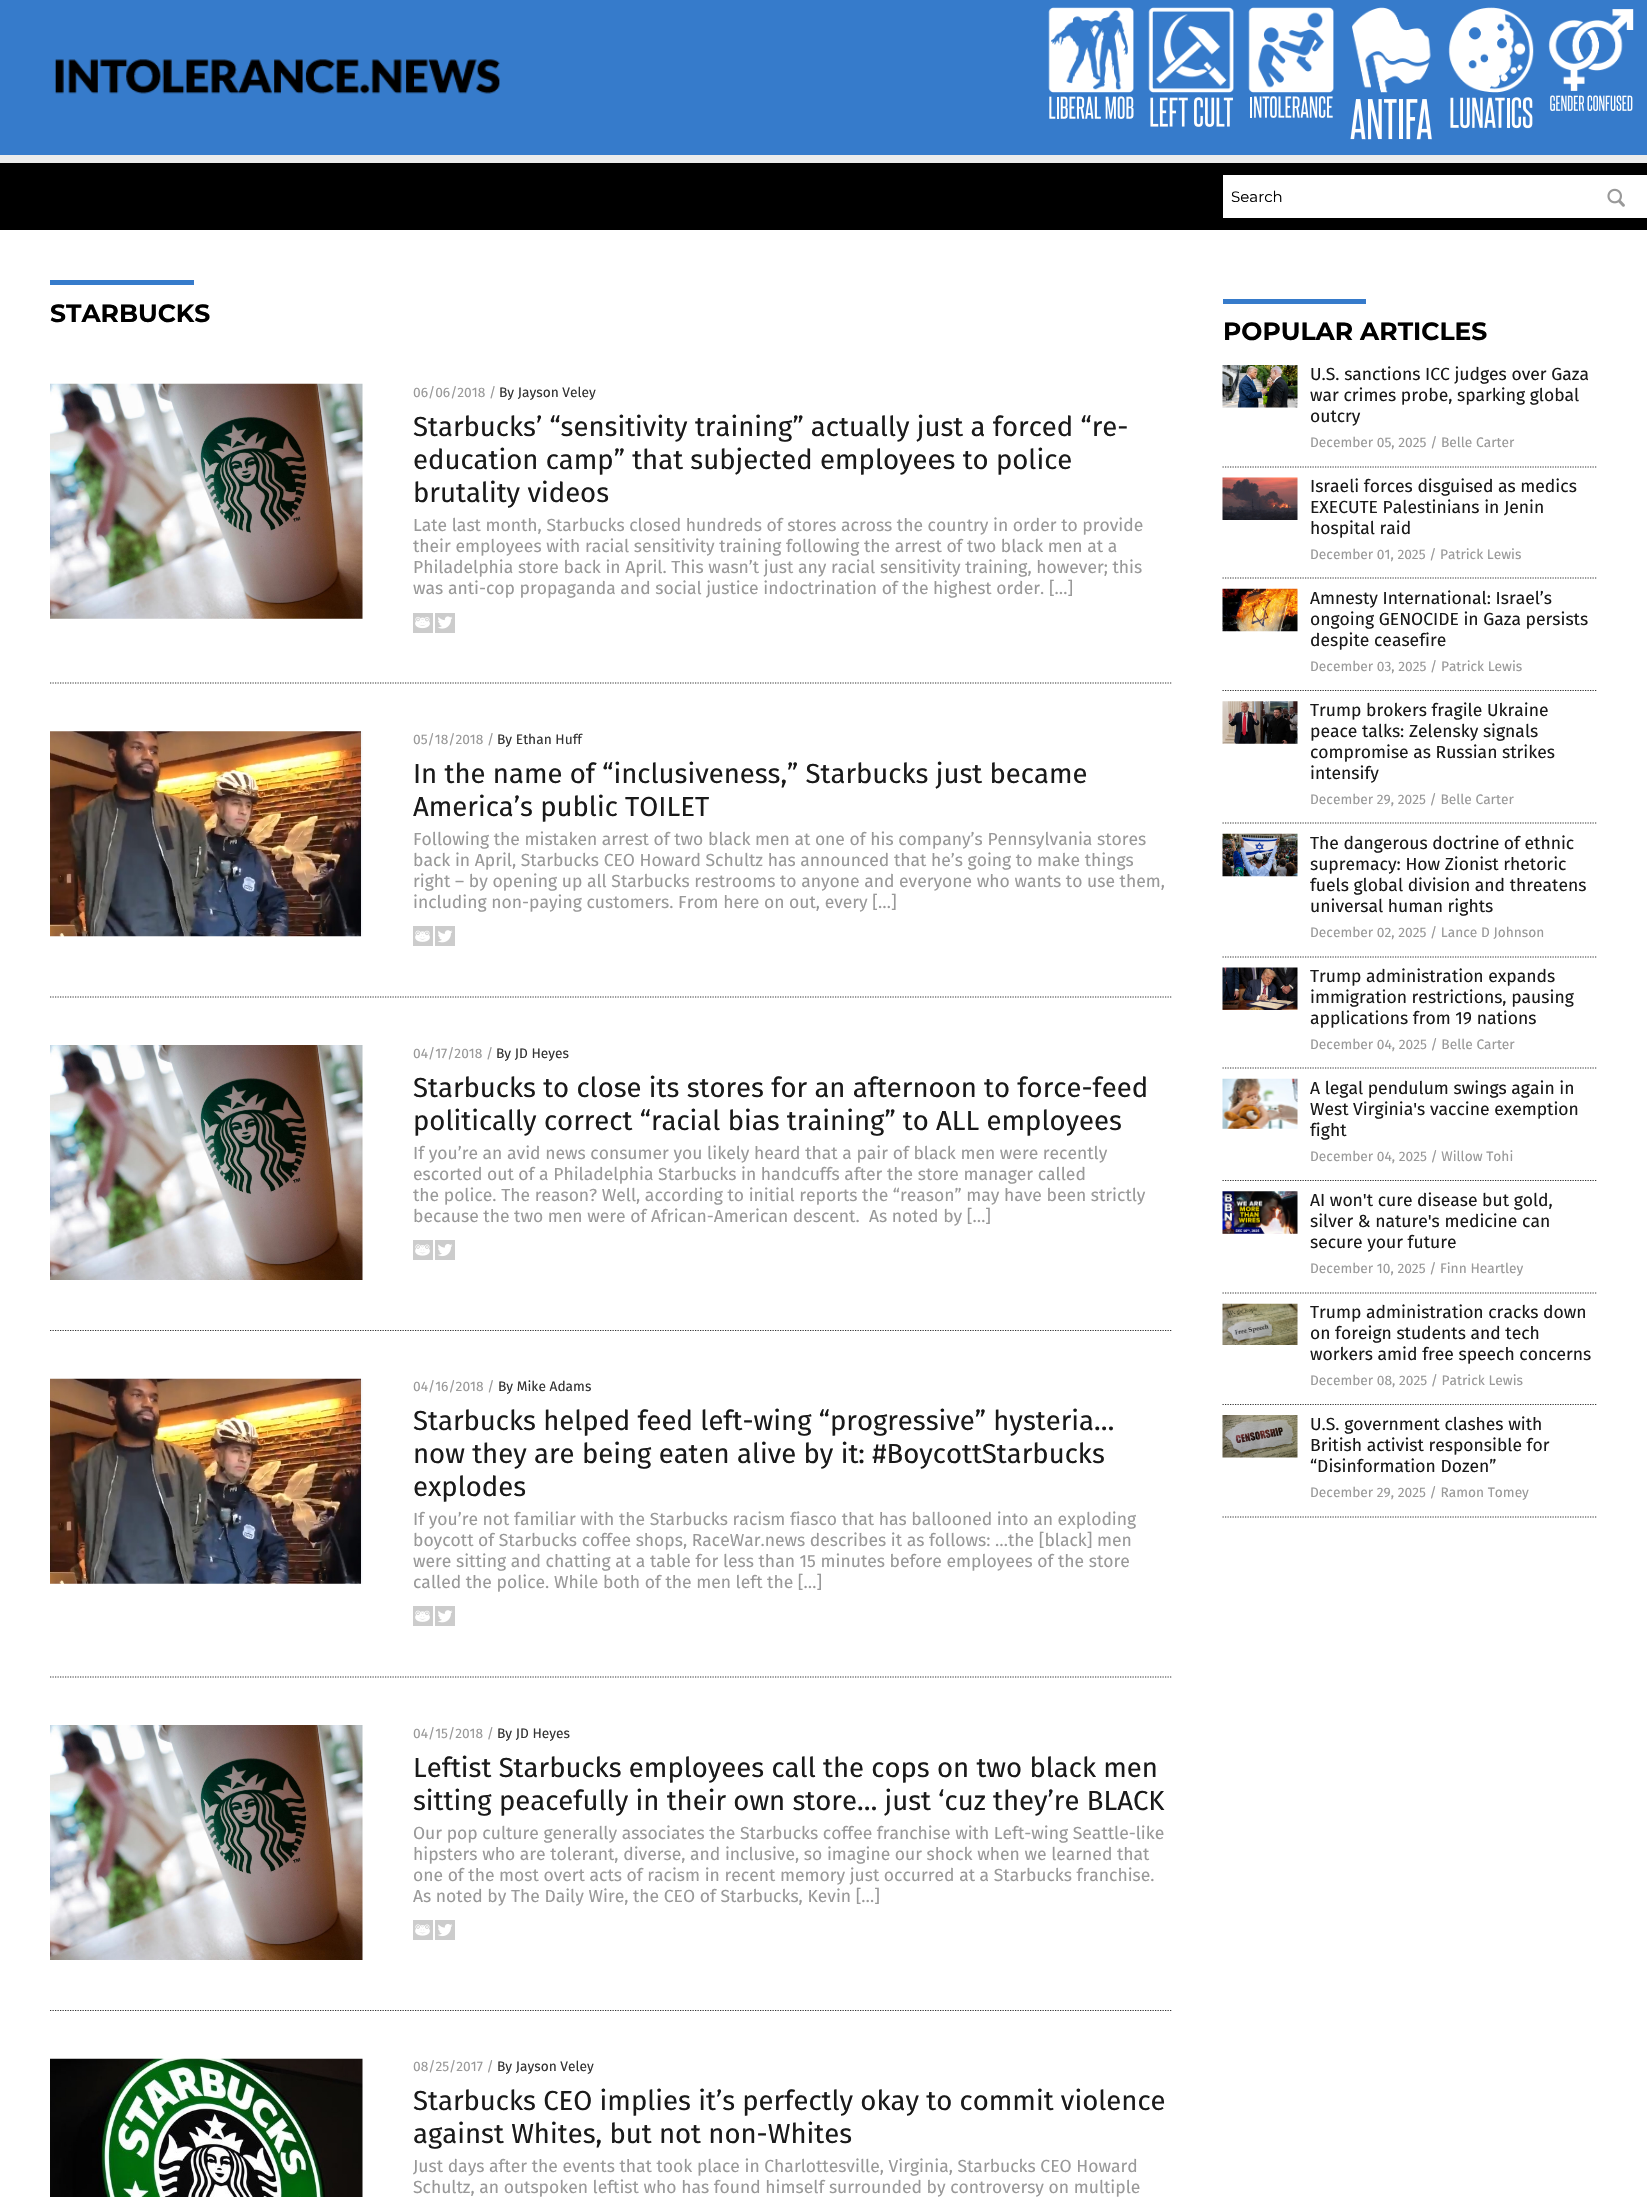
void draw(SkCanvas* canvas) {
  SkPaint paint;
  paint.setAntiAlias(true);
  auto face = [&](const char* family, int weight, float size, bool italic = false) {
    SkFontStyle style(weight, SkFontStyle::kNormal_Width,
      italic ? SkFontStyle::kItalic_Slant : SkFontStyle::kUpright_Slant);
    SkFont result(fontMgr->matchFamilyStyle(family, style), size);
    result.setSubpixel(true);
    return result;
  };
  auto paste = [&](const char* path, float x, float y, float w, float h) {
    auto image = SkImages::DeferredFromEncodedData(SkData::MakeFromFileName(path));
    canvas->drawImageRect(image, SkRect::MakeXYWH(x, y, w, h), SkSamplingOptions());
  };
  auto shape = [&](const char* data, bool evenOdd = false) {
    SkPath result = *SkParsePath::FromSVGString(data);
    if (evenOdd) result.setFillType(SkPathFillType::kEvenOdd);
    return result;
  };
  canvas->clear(0xff000000);
  paint.setColor(0xff367bcb);
  canvas->drawRect(SkRect::MakeXYWH(0, 0, 1647, 155), paint);
  paste("img/1.png", 55, 59, 445, 35);
  paste("img/2.png", 1048, 7, 86, 86);
  paste("img/3.png", 1049, 96, 85, 23);
  paste("img/4.png", 1148, 7, 86, 86);
  paste("img/5.png", 1150, 97, 83, 30);
  paste("img/6.png", 1248, 7, 86, 86);
  paste("img/7.png", 1250, 96, 83, 22);
  paste("img/8.png", 1352, 7, 79, 86);
  paste("img/9.png", 1350, 99, 82, 41);
  paste("img/10.png", 1448, 7, 86, 86);
  paste("img/11.png", 1450, 97, 83, 32);
  paste("img/12.png", 1548, 9, 86, 82);
  paste("img/13.png", 1550, 95, 83, 16);
  paint.setColor(0xffececec);
  canvas->drawRect(SkRect::MakeXYWH(0, 155, 1647, 8), paint);
  paint.setColor(0xffffffff);
  canvas->drawRect(SkRect::MakeXYWH(1223, 175, 424, 43), paint);
  paste("img/14.png", 1607, 188, 18, 19);
  canvas->drawRect(SkRect::MakeXYWH(0, 230, 1647, 1967), paint);
  paint.setColor(0xff367bcb);
  canvas->drawRect(SkRect::MakeXYWH(50, 280, 144, 5), paint);
  paint.setStroke(true);
  paint.setStrokeWidth(1.2f);
  paint.setColor(0xff343434);
  paint.setPathEffect(SkDashPathEffect::Make({{1.25f, 1.25f}}, 0));
  canvas->drawPath(shape("M50 683H1172.5"), paint);
  paint.setPathEffect(nullptr);
  paste("img/15.png", 50, 383, 313, 236);
  paste("img/16.png", 413, 613, 20, 20);
  paste("img/17.png", 435, 613, 20, 20);
  paint.setPathEffect(SkDashPathEffect::Make({{1.25f, 1.25f}}, 0));
  canvas->drawPath(shape("M50 997H1172.5"), paint);
  paint.setPathEffect(nullptr);
  paste("img/18.png", 50, 731, 313, 206);
  paste("img/19.png", 413, 926, 20, 20);
  paste("img/20.png", 435, 926, 20, 20);
  paint.setPathEffect(SkDashPathEffect::Make({{1.25f, 1.25f}}, 0));
  canvas->drawPath(shape("M50 1330.5H1172.5"), paint);
  paint.setPathEffect(nullptr);
  paste("img/21.png", 50, 1045, 313, 235);
  paste("img/22.png", 413, 1240, 20, 20);
  paste("img/23.png", 435, 1240, 20, 20);
  paint.setPathEffect(SkDashPathEffect::Make({{1.25f, 1.25f}}, 0));
  canvas->drawPath(shape("M50 1677H1172.5"), paint);
  paint.setPathEffect(nullptr);
  paste("img/24.png", 50, 1378, 313, 206);
  paste("img/19.png", 413, 1606, 20, 20);
  paste("img/20.png", 435, 1606, 20, 20);
  paint.setPathEffect(SkDashPathEffect::Make({{1.25f, 1.25f}}, 0));
  canvas->drawPath(shape("M50 2010.5H1172.5"), paint);
  paint.setPathEffect(nullptr);
  paste("img/21.png", 50, 1725, 313, 235);
  paste("img/22.png", 413, 1920, 20, 20);
  paste("img/23.png", 435, 1920, 20, 20);
  paste("img/25.png", 50, 2058, 313, 139);
  paint.setStroke(false);
  paint.setColor(0xff367bcb);
  canvas->drawRect(SkRect::MakeXYWH(1223, 299, 143, 5), paint);
  paint.setStroke(true);
  paint.setColor(0xff343434);
  paint.setPathEffect(SkDashPathEffect::Make({{1.25f, 1.25f}}, 0));
  canvas->drawPath(shape("M1222.5 467H1597.5"), paint);
  paint.setPathEffect(nullptr);
  paste("img/26.png", 1222, 365, 76, 43);
  paint.setPathEffect(SkDashPathEffect::Make({{1.25f, 1.25f}}, 0));
  canvas->drawPath(shape("M1222.5 578H1597.5"), paint);
  paint.setPathEffect(nullptr);
  paste("img/27.png", 1222, 477, 76, 43);
  paint.setPathEffect(SkDashPathEffect::Make({{1.25f, 1.25f}}, 0));
  canvas->drawPath(shape("M1222.5 690.5H1597.5"), paint);
  paint.setPathEffect(nullptr);
  paste("img/28.png", 1222, 588, 76, 44);
  paint.setPathEffect(SkDashPathEffect::Make({{1.25f, 1.25f}}, 0));
  canvas->drawPath(shape("M1222.5 823H1597.5"), paint);
  paint.setPathEffect(nullptr);
  paste("img/29.png", 1222, 701, 76, 43);
  paint.setPathEffect(SkDashPathEffect::Make({{1.25f, 1.25f}}, 0));
  canvas->drawPath(shape("M1222.5 957H1597.5"), paint);
  paint.setPathEffect(nullptr);
  paste("img/30.png", 1222, 833, 76, 44);
  paint.setPathEffect(SkDashPathEffect::Make({{1.25f, 1.25f}}, 0));
  canvas->drawPath(shape("M1222.5 1068H1597.5"), paint);
  paint.setPathEffect(nullptr);
  paste("img/31.png", 1222, 967, 76, 43);
  paint.setPathEffect(SkDashPathEffect::Make({{1.25f, 1.25f}}, 0));
  canvas->drawPath(shape("M1222.5 1180.5H1597.5"), paint);
  paint.setPathEffect(nullptr);
  paste("img/32.png", 1222, 1078, 76, 51);
  paint.setPathEffect(SkDashPathEffect::Make({{1.25f, 1.25f}}, 0));
  canvas->drawPath(shape("M1222.5 1293H1597.5"), paint);
  paint.setPathEffect(nullptr);
  paste("img/33.png", 1222, 1191, 76, 43);
  paint.setPathEffect(SkDashPathEffect::Make({{1.25f, 1.25f}}, 0));
  canvas->drawPath(shape("M1222.5 1404.5H1597.5"), paint);
  paint.setPathEffect(nullptr);
  paste("img/34.png", 1222, 1303, 76, 42);
  paint.setPathEffect(SkDashPathEffect::Make({{1.25f, 1.25f}}, 0));
  canvas->drawPath(shape("M1222.5 1517H1597.5"), paint);
  paint.setPathEffect(nullptr);
  paste("img/35.png", 1222, 1415, 76, 43);
  auto f0 = face("Montserrat", 400, 15);
  paint.setStroke(false);
  paint.setColor(0xff000000);
  canvas->drawString("Search", 1231, 202, f0, paint);
  auto f1 = face("Montserrat", 700, 25);
  canvas->drawString("STARBUCKS", 50, 322, f1, paint);
  auto f2 = face("Fira Sans", 400, 13.75f);
  paint.setColor(0xff999999);
  canvas->drawString("06/06/2018 /", 413, 397, f2, paint);
  paint.setColor(0xff333333);
  canvas->drawString("By Jayson Veley", 499, 397, f2, paint);
  auto f3 = face("Fira Sans", 400, 27.5f);
  paint.setColor(0xff1a1a1a);
  {
    const struct { const char* s; float x, y; } items[] = {
      {"Starbucks’ “sensitivity training” actually just a forced “re-", 413, 436},
      {"education camp” that subjected employees to police", 413, 469},
      {"brutality videos", 413, 502},
    };
    for (auto [s, x, y] : items) {
      canvas->drawString(s, x, y, f3, paint);
    }
  }
  auto f4 = face("Fira Sans", 400, 17.5f);
  paint.setColor(0xff999999);
  {
    const struct { const char* s; float x, y; } items[] = {
      {"Late last month, Starbucks closed hundreds of stores across the country in order to provide", 413, 531},
      {"their employees with racial sensitivity training following the arrest of two black men at a", 413, 552},
      {"Philadelphia store back in April. This wasn’t just any racial sensitivity training, however; this", 413, 573},
      {"was anti-cop propaganda and social justice indoctrination of the highest order. […]", 413, 594},
    };
    for (auto [s, x, y] : items) {
      canvas->drawString(s, x, y, f4, paint);
    }
  }
  canvas->drawString("05/18/2018 /", 413, 744, f2, paint);
  paint.setColor(0xff333333);
  canvas->drawString("By Ethan Huff", 497, 744, f2, paint);
  paint.setColor(0xff1a1a1a);
  canvas->drawString("In the name of “inclusiveness,” Starbucks just became", 413, 783, f3, paint);
  canvas->drawString("America’s public TOILET", 413, 816, f3, paint);
  paint.setColor(0xff999999);
  {
    const struct { const char* s; float x, y; } items[] = {
      {"Following the mistaken arrest of two black men at one of his company’s Pennsylvania stores", 413, 845},
      {"back in April, Starbucks CEO Howard Schultz has announced that he’s going to make things", 413, 866},
      {"right – by opening up all Starbucks restrooms to anyone and everyone who wants to use them,", 413, 887},
      {"including non-paying customers. From here on out, every […]", 413, 908},
    };
    for (auto [s, x, y] : items) {
      canvas->drawString(s, x, y, f4, paint);
    }
  }
  canvas->drawString("04/17/2018 /", 413, 1058, f2, paint);
  paint.setColor(0xff333333);
  canvas->drawString("By JD Heyes", 496, 1058, f2, paint);
  paint.setColor(0xff1a1a1a);
  canvas->drawString("Starbucks to close its stores for an afternoon to force-feed", 413, 1097, f3, paint);
  canvas->drawString("politically correct “racial bias training” to ALL employees", 413, 1130, f3, paint);
  paint.setColor(0xff999999);
  {
    const struct { const char* s; float x, y; } items[] = {
      {"If you’re an avid news consumer you likely heard that a pair of black men were recently", 413, 1159},
      {"escorted out of a Philadelphia Starbucks in handcuffs after the store manager called", 413, 1180},
      {"the police. The reason? Well, according to initial reports the “reason” may have been strictly", 413, 1201},
      {"because the two men were of African-American descent.  As noted by […]", 413, 1222},
    };
    for (auto [s, x, y] : items) {
      canvas->drawString(s, x, y, f4, paint);
    }
  }
  canvas->drawString("04/16/2018 /", 413, 1391, f2, paint);
  paint.setColor(0xff333333);
  canvas->drawString("By Mike Adams", 498, 1391, f2, paint);
  paint.setColor(0xff1a1a1a);
  {
    const struct { const char* s; float x, y; } items[] = {
      {"Starbucks helped feed left-wing “progressive” hysteria…", 413, 1430},
      {"now they are being eaten alive by it: #BoycottStarbucks", 413, 1463},
      {"explodes", 413, 1496},
    };
    for (auto [s, x, y] : items) {
      canvas->drawString(s, x, y, f3, paint);
    }
  }
  paint.setColor(0xff999999);
  {
    const struct { const char* s; float x, y; } items[] = {
      {"If you’re not familiar with the Starbucks racism fiasco that has ballooned into an exploding", 413, 1525},
      {"boycott of Starbucks coffee shops, RaceWar.news describes it as follows: …the [black] men", 413, 1546},
      {"were sitting and chatting at a table for less than 15 minutes before employees of the store", 413, 1567},
      {"called the police. While both of the men left the […]", 413, 1588},
    };
    for (auto [s, x, y] : items) {
      canvas->drawString(s, x, y, f4, paint);
    }
  }
  canvas->drawString("04/15/2018 /", 413, 1738, f2, paint);
  paint.setColor(0xff333333);
  canvas->drawString("By JD Heyes", 497, 1738, f2, paint);
  paint.setColor(0xff1a1a1a);
  canvas->drawString("Leftist Starbucks employees call the cops on two black men", 413, 1777, f3, paint);
  canvas->drawString("sitting peacefully in their own store… just ‘cuz they’re BLACK", 413, 1810, f3, paint);
  paint.setColor(0xff999999);
  {
    const struct { const char* s; float x, y; } items[] = {
      {"Our pop culture generally associates the Starbucks coffee franchise with Left-wing Seattle-like", 413, 1839},
      {"hipsters who are tolerant, diverse, and inclusive, so imagine our shock when we learned that", 413, 1860},
      {"one of the most overt acts of racism in recent memory just occurred at a Starbucks franchise.", 413, 1881},
      {"As noted by The Daily Wire, the CEO of Starbucks, Kevin […]", 413, 1902},
    };
    for (auto [s, x, y] : items) {
      canvas->drawString(s, x, y, f4, paint);
    }
  }
  canvas->drawString("08/25/2017 /", 413, 2071, f2, paint);
  paint.setColor(0xff333333);
  canvas->drawString("By Jayson Veley", 497, 2071, f2, paint);
  paint.setColor(0xff1a1a1a);
  canvas->drawString("Starbucks CEO implies it’s perfectly okay to commit violence", 413, 2110, f3, paint);
  canvas->drawString("against Whites, but not non-Whites", 413, 2143, f3, paint);
  paint.setColor(0xff999999);
  canvas->drawString("Just days after the events that took place in Charlottesville, Virginia, Starbucks CEO Howard", 413, 2172, f4, paint);
  canvas->drawString("Schultz, an outspoken leftist who has found himself surrounded by controversy on multiple", 413, 2193, f4, paint);
  paint.setColor(0xff000000);
  canvas->drawString("POPULAR ARTICLES", 1223, 340, f1, paint);
  paint.setColor(0xff1a1a1a);
  {
    const struct { const char* s; float x, y; } items[] = {
      {"U.S. sanctions ICC judges over Gaza", 1310, 380},
      {"war crimes probe, sparking global", 1310, 401},
      {"outcry", 1310, 422},
    };
    for (auto [s, x, y] : items) {
      canvas->drawString(s, x, y, f4, paint);
    }
  }
  paint.setColor(0xff999999);
  canvas->drawString("December 05, 2025 / Belle Carter", 1310, 447, f2, paint);
  paint.setColor(0xff1a1a1a);
  {
    const struct { const char* s; float x, y; } items[] = {
      {"Israeli forces disguised as medics", 1310, 492},
      {"EXECUTE Palestinians in Jenin", 1310, 513},
      {"hospital raid", 1310, 534},
    };
    for (auto [s, x, y] : items) {
      canvas->drawString(s, x, y, f4, paint);
    }
  }
  paint.setColor(0xff999999);
  canvas->drawString("December 01, 2025 / Patrick Lewis", 1310, 559, f2, paint);
  paint.setColor(0xff1a1a1a);
  {
    const struct { const char* s; float x, y; } items[] = {
      {"Amnesty International: Israel’s", 1310, 604},
      {"ongoing GENOCIDE in Gaza persists", 1310, 625},
      {"despite ceasefire", 1310, 646},
    };
    for (auto [s, x, y] : items) {
      canvas->drawString(s, x, y, f4, paint);
    }
  }
  paint.setColor(0xff999999);
  canvas->drawString("December 03, 2025 / Patrick Lewis", 1310, 671, f2, paint);
  paint.setColor(0xff1a1a1a);
  {
    const struct { const char* s; float x, y; } items[] = {
      {"Trump brokers fragile Ukraine", 1310, 716},
      {"peace talks: Zelensky signals", 1310, 737},
      {"compromise as Russian strikes", 1310, 758},
      {"intensify", 1310, 779},
    };
    for (auto [s, x, y] : items) {
      canvas->drawString(s, x, y, f4, paint);
    }
  }
  paint.setColor(0xff999999);
  canvas->drawString("December 29, 2025 / Belle Carter", 1310, 804, f2, paint);
  paint.setColor(0xff1a1a1a);
  {
    const struct { const char* s; float x, y; } items[] = {
      {"The dangerous doctrine of ethnic", 1310, 849},
      {"supremacy: How Zionist rhetoric", 1310, 870},
      {"fuels global division and threatens", 1310, 891},
      {"universal human rights", 1310, 912},
    };
    for (auto [s, x, y] : items) {
      canvas->drawString(s, x, y, f4, paint);
    }
  }
  paint.setColor(0xff999999);
  canvas->drawString("December 02, 2025 / Lance D Johnson", 1310, 937, f2, paint);
  paint.setColor(0xff1a1a1a);
  {
    const struct { const char* s; float x, y; } items[] = {
      {"Trump administration expands", 1310, 982},
      {"immigration restrictions, pausing", 1310, 1003},
      {"applications from 19 nations", 1310, 1024},
    };
    for (auto [s, x, y] : items) {
      canvas->drawString(s, x, y, f4, paint);
    }
  }
  paint.setColor(0xff999999);
  canvas->drawString("December 04, 2025 / Belle Carter", 1310, 1049, f2, paint);
  paint.setColor(0xff1a1a1a);
  {
    const struct { const char* s; float x, y; } items[] = {
      {"A legal pendulum swings again in", 1310, 1094},
      {"West Virginia's vaccine exemption", 1310, 1115},
      {"fight", 1310, 1136},
    };
    for (auto [s, x, y] : items) {
      canvas->drawString(s, x, y, f4, paint);
    }
  }
  paint.setColor(0xff999999);
  canvas->drawString("December 04, 2025 / Willow Tohi", 1310, 1161, f2, paint);
  paint.setColor(0xff1a1a1a);
  {
    const struct { const char* s; float x, y; } items[] = {
      {"AI won't cure disease but gold,", 1310, 1206},
      {"silver & nature's medicine can", 1310, 1227},
      {"secure your future", 1310, 1248},
    };
    for (auto [s, x, y] : items) {
      canvas->drawString(s, x, y, f4, paint);
    }
  }
  paint.setColor(0xff999999);
  canvas->drawString("December 10, 2025 / Finn Heartley", 1310, 1273, f2, paint);
  paint.setColor(0xff1a1a1a);
  {
    const struct { const char* s; float x, y; } items[] = {
      {"Trump administration cracks down", 1310, 1318},
      {"on foreign students and tech", 1310, 1339},
      {"workers amid free speech concerns", 1310, 1360},
    };
    for (auto [s, x, y] : items) {
      canvas->drawString(s, x, y, f4, paint);
    }
  }
  paint.setColor(0xff999999);
  canvas->drawString("December 08, 2025 / Patrick Lewis", 1310, 1385, f2, paint);
  paint.setColor(0xff1a1a1a);
  {
    const struct { const char* s; float x, y; } items[] = {
      {"U.S. government clashes with", 1310, 1430},
      {"British activist responsible for", 1310, 1451},
      {"“Disinformation Dozen”", 1310, 1472},
    };
    for (auto [s, x, y] : items) {
      canvas->drawString(s, x, y, f4, paint);
    }
  }
  paint.setColor(0xff999999);
  canvas->drawString("December 29, 2025 / Ramon Tomey", 1310, 1497, f2, paint);
}
